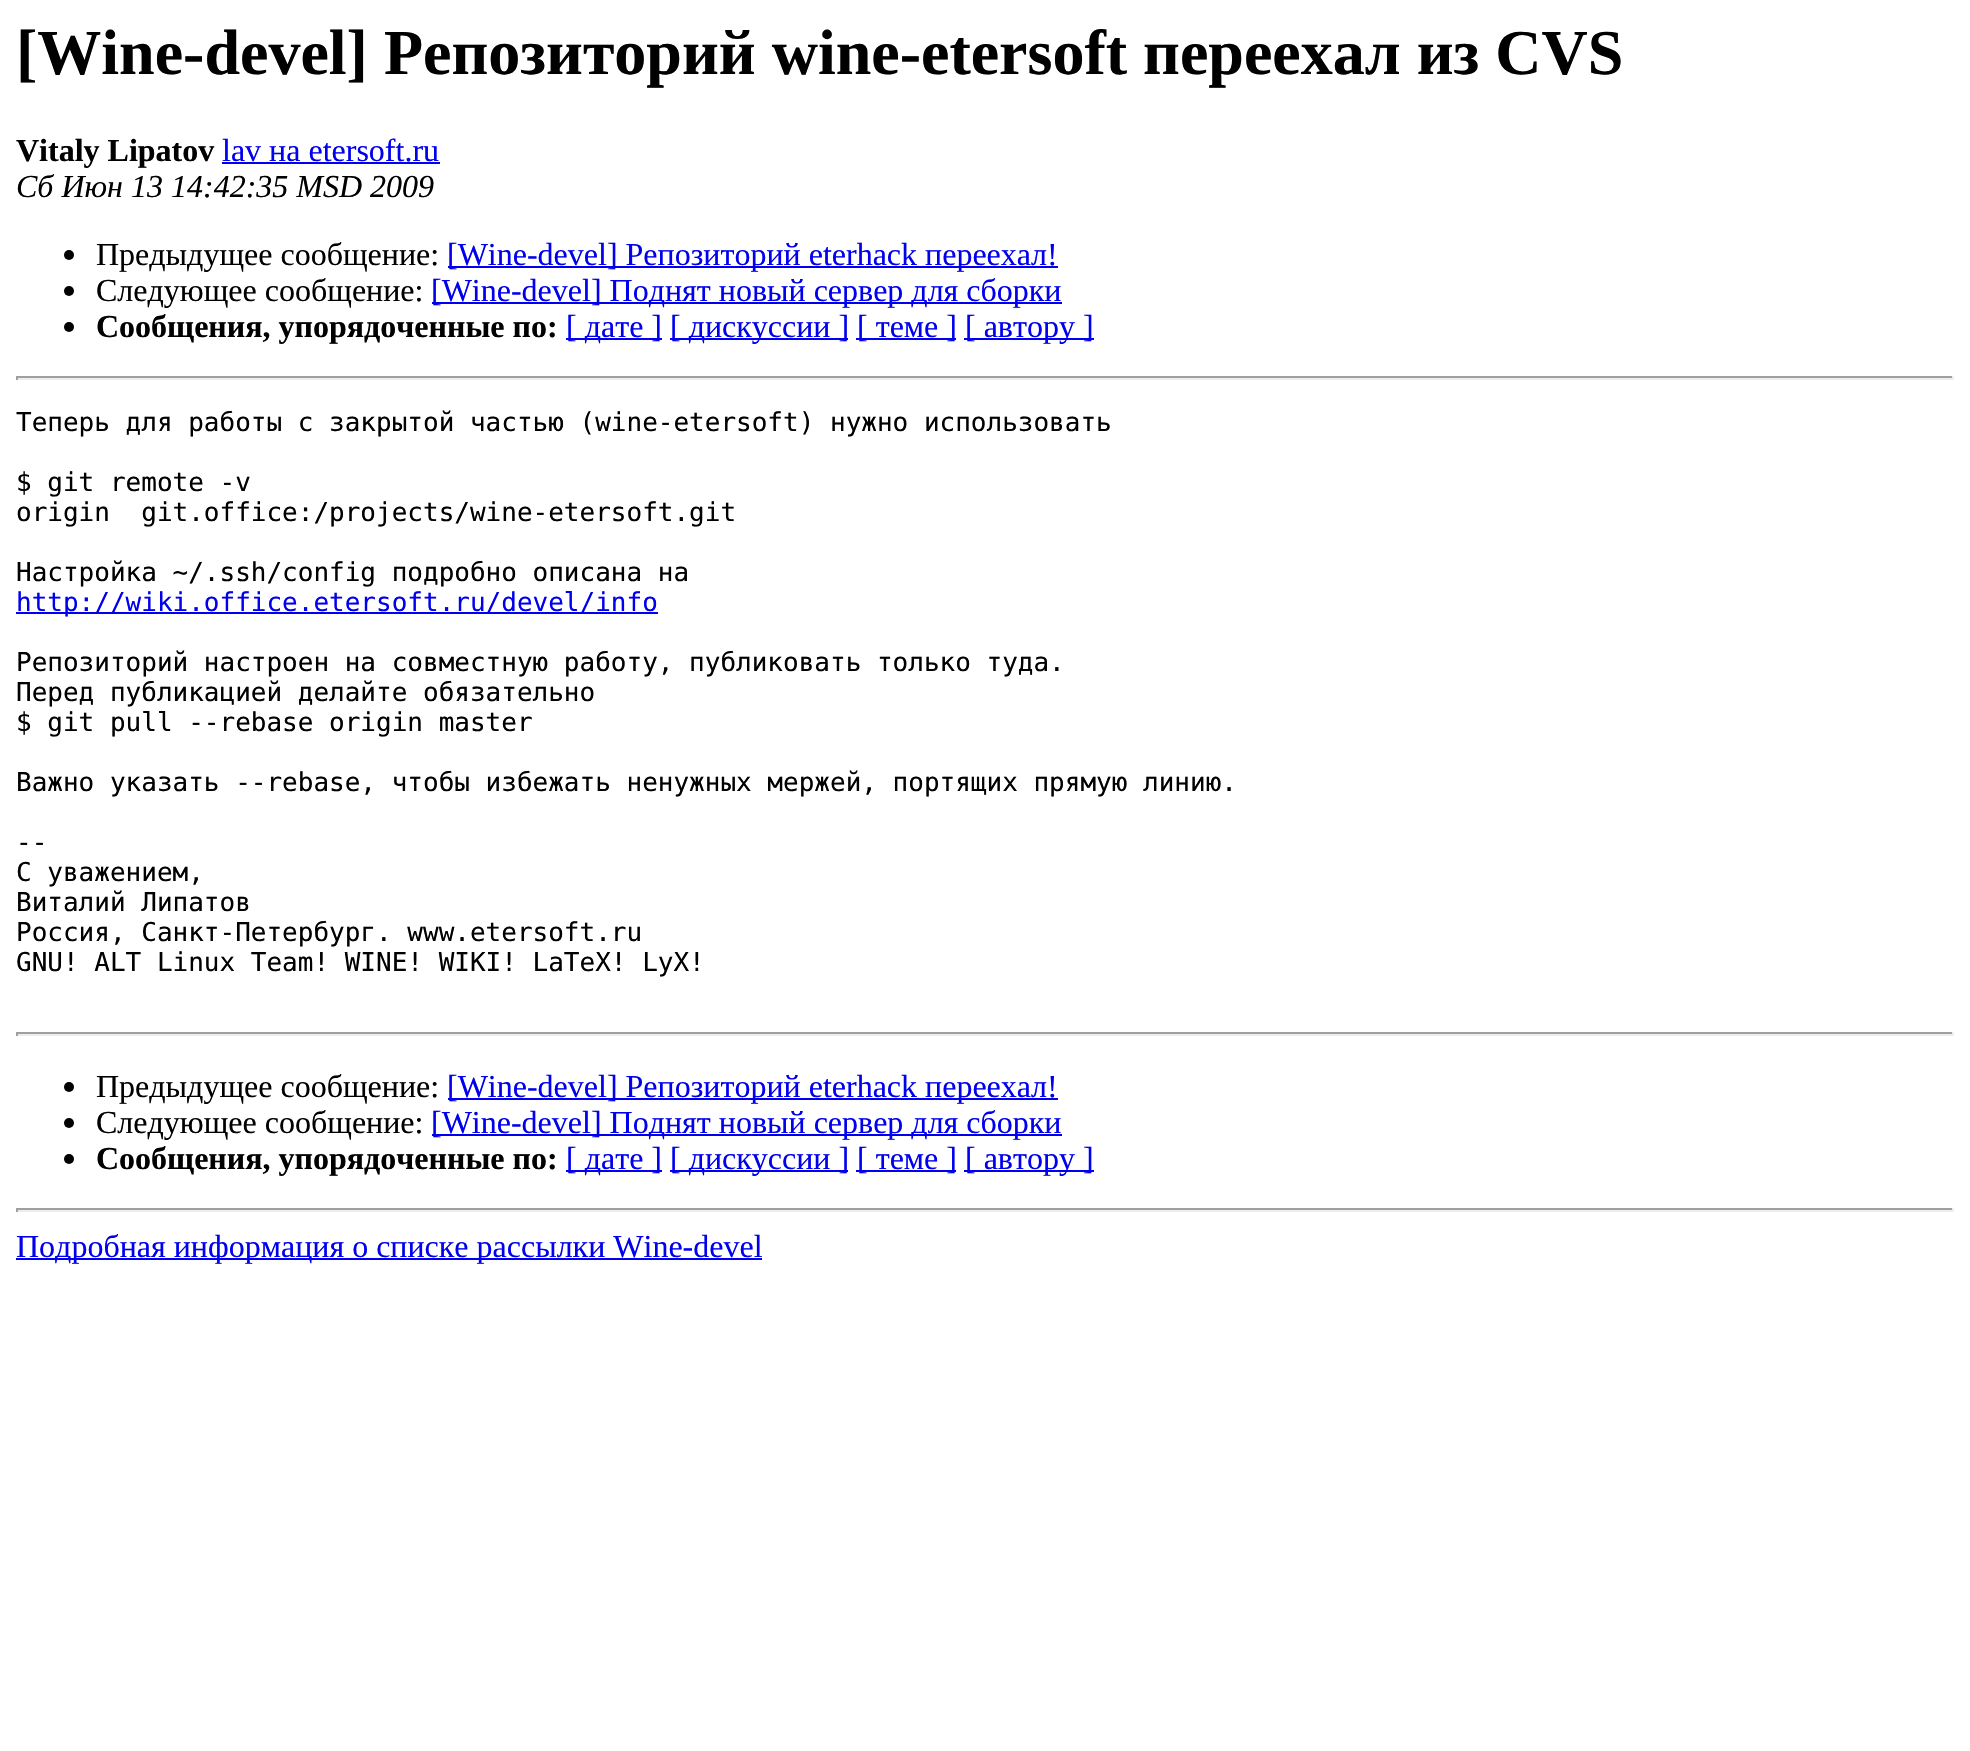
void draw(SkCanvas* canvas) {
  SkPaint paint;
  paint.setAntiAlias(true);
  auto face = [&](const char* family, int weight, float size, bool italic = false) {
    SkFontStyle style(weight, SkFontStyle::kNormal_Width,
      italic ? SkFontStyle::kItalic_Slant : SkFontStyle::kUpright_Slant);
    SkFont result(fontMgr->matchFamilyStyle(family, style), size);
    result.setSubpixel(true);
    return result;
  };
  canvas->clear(0xffffffff);
  paint.setColor(0xff0000ee);
  canvas->drawRect(SkRect::MakeXYWH(222, 162, 218, 2), paint);
  paint.setColor(0xff000000);
  canvas->drawCircle(69, 255, 5, paint);
  paint.setColor(0xff0000ee);
  canvas->drawRect(SkRect::MakeXYWH(448, 266, 610, 2), paint);
  paint.setColor(0xff000000);
  canvas->drawCircle(69, 291, 5, paint);
  paint.setColor(0xff0000ee);
  canvas->drawRect(SkRect::MakeXYWH(432, 302, 630, 2), paint);
  paint.setColor(0xff000000);
  canvas->drawCircle(69, 327, 5, paint);
  {
    const struct { float x, y, w, h; SkColor color; } items[] = {
      {566, 338, 96, 2, 0xff0000ee},
      {670, 338, 178, 2, 0xff0000ee},
      {856, 338, 100, 2, 0xff0000ee},
      {964, 338, 130, 2, 0xff0000ee},
      {16, 376, 1938, 2, 0xff9f9f9f},
      {1952, 376, 2, 4, 0xffeeeeee},
      {16, 378, 1938, 2, 0xffeeeeee},
      {16, 376, 2, 4, 0xff9f9f9f},
      {16, 612, 642, 2, 0xff0000ee},
      {16, 1032, 1938, 2, 0xff9f9f9f},
      {1952, 1032, 2, 4, 0xffeeeeee},
      {16, 1034, 1938, 2, 0xffeeeeee},
      {16, 1032, 2, 4, 0xff9f9f9f},
    };
    for (auto [x, y, w, h, color] : items) {
      paint.setColor(color);
      canvas->drawRect(SkRect::MakeXYWH(x, y, w, h), paint);
    }
  }
  paint.setColor(0xff000000);
  canvas->drawCircle(69, 1087, 5, paint);
  paint.setColor(0xff0000ee);
  canvas->drawRect(SkRect::MakeXYWH(448, 1098, 610, 2), paint);
  paint.setColor(0xff000000);
  canvas->drawCircle(69, 1123, 5, paint);
  paint.setColor(0xff0000ee);
  canvas->drawRect(SkRect::MakeXYWH(432, 1134, 630, 2), paint);
  paint.setColor(0xff000000);
  canvas->drawCircle(69, 1159, 5, paint);
  {
    const struct { float x, y, w, h; SkColor color; } items[] = {
      {566, 1170, 96, 2, 0xff0000ee},
      {670, 1170, 178, 2, 0xff0000ee},
      {856, 1170, 100, 2, 0xff0000ee},
      {964, 1170, 130, 2, 0xff0000ee},
      {16, 1208, 1938, 2, 0xff9f9f9f},
      {1952, 1208, 2, 4, 0xffeeeeee},
      {16, 1210, 1938, 2, 0xffeeeeee},
      {16, 1208, 2, 4, 0xff9f9f9f},
      {16, 1258, 746, 2, 0xff0000ee},
    };
    for (auto [x, y, w, h, color] : items) {
      paint.setColor(color);
      canvas->drawRect(SkRect::MakeXYWH(x, y, w, h), paint);
    }
  }
  auto f0 = face("Liberation Serif", 700, 64);
  paint.setColor(0xff000000);
  canvas->drawString("[Wine-devel] Репозиторий wine-etersoft переехал из CVS", 16, 74, f0, paint);
  auto f1 = face("Liberation Serif", 700, 32);
  canvas->drawString("Vitaly Lipatov", 16, 161, f1, paint);
  auto f2 = face("Liberation Serif", 400, 32);
  paint.setColor(0xff0000ee);
  canvas->drawString("lav на etersoft.ru", 222, 161, f2, paint);
  auto f3 = face("Liberation Serif", 400, 32, true);
  paint.setColor(0xff000000);
  canvas->drawString("Сб Июн 13 14:42:35 MSD 2009", 16, 197, f3, paint);
  canvas->drawString("Предыдущее сообщение:", 96, 265, f2, paint);
  paint.setColor(0xff0000ee);
  canvas->drawString("[Wine-devel] Репозиторий eterhack переехал!", 447, 265, f2, paint);
  paint.setColor(0xff000000);
  canvas->drawString("Следующее сообщение:", 96, 301, f2, paint);
  paint.setColor(0xff0000ee);
  canvas->drawString("[Wine-devel] Поднят новый сервер для сборки", 431, 301, f2, paint);
  paint.setColor(0xff000000);
  canvas->drawString("Сообщения, упорядоченные по:", 96, 337, f1, paint);
  paint.setColor(0xff0000ee);
  {
    const struct { const char* s; float x, y; } items[] = {
      {"[ дате ]", 566, 337},
      {"[ дискуссии ]", 670, 337},
      {"[ теме ]", 857, 337},
      {"[ автору ]", 965, 337},
    };
    for (auto [s, x, y] : items) {
      canvas->drawString(s, x, y, f2, paint);
    }
  }
  auto f4 = face("DejaVu Sans Mono", 400, 26);
  paint.setColor(0xff000000);
  {
    const struct { const char* s; float x, y; } items[] = {
      {"Теперь для работы с закрытой частью (wine-etersoft) нужно использовать", 16, 431},
      {"$ git remote -v", 16, 491},
      {"origin  git.office:/projects/wine-etersoft.git", 16, 521},
      {"Настройка ~/.ssh/config подробно описана на", 16, 581},
    };
    for (auto [s, x, y] : items) {
      canvas->drawString(s, x, y, f4, paint);
    }
  }
  paint.setColor(0xff0000ee);
  canvas->drawString("http://wiki.office.etersoft.ru/devel/info", 16, 611, f4, paint);
  paint.setColor(0xff000000);
  {
    const struct { const char* s; float x, y; } items[] = {
      {"Репозиторий настроен на совместную работу, публиковать только туда.", 16, 671},
      {"Перед публикацией делайте обязательно", 16, 701},
      {"$ git pull --rebase origin master", 16, 731},
      {"Важно указать --rebase, чтобы избежать ненужных мержей, портящих прямую линию.", 16, 791},
      {"--", 16, 851},
      {"С уважением,", 16, 881},
      {"Виталий Липатов", 16, 911},
      {"Россия, Санкт-Петербург. www.etersoft.ru", 16, 941},
      {"GNU! ALT Linux Team! WINE! WIKI! LaTeX! LyX!", 16, 971},
    };
    for (auto [s, x, y] : items) {
      canvas->drawString(s, x, y, f4, paint);
    }
  }
  canvas->drawString("Предыдущее сообщение:", 96, 1097, f2, paint);
  paint.setColor(0xff0000ee);
  canvas->drawString("[Wine-devel] Репозиторий eterhack переехал!", 447, 1097, f2, paint);
  paint.setColor(0xff000000);
  canvas->drawString("Следующее сообщение:", 96, 1133, f2, paint);
  paint.setColor(0xff0000ee);
  canvas->drawString("[Wine-devel] Поднят новый сервер для сборки", 431, 1133, f2, paint);
  paint.setColor(0xff000000);
  canvas->drawString("Сообщения, упорядоченные по:", 96, 1169, f1, paint);
  paint.setColor(0xff0000ee);
  {
    const struct { const char* s; float x, y; } items[] = {
      {"[ дате ]", 566, 1169},
      {"[ дискуссии ]", 670, 1169},
      {"[ теме ]", 857, 1169},
      {"[ автору ]", 965, 1169},
      {"Подробная информация о списке рассылки Wine-devel", 16, 1257},
    };
    for (auto [s, x, y] : items) {
      canvas->drawString(s, x, y, f2, paint);
    }
  }
}
